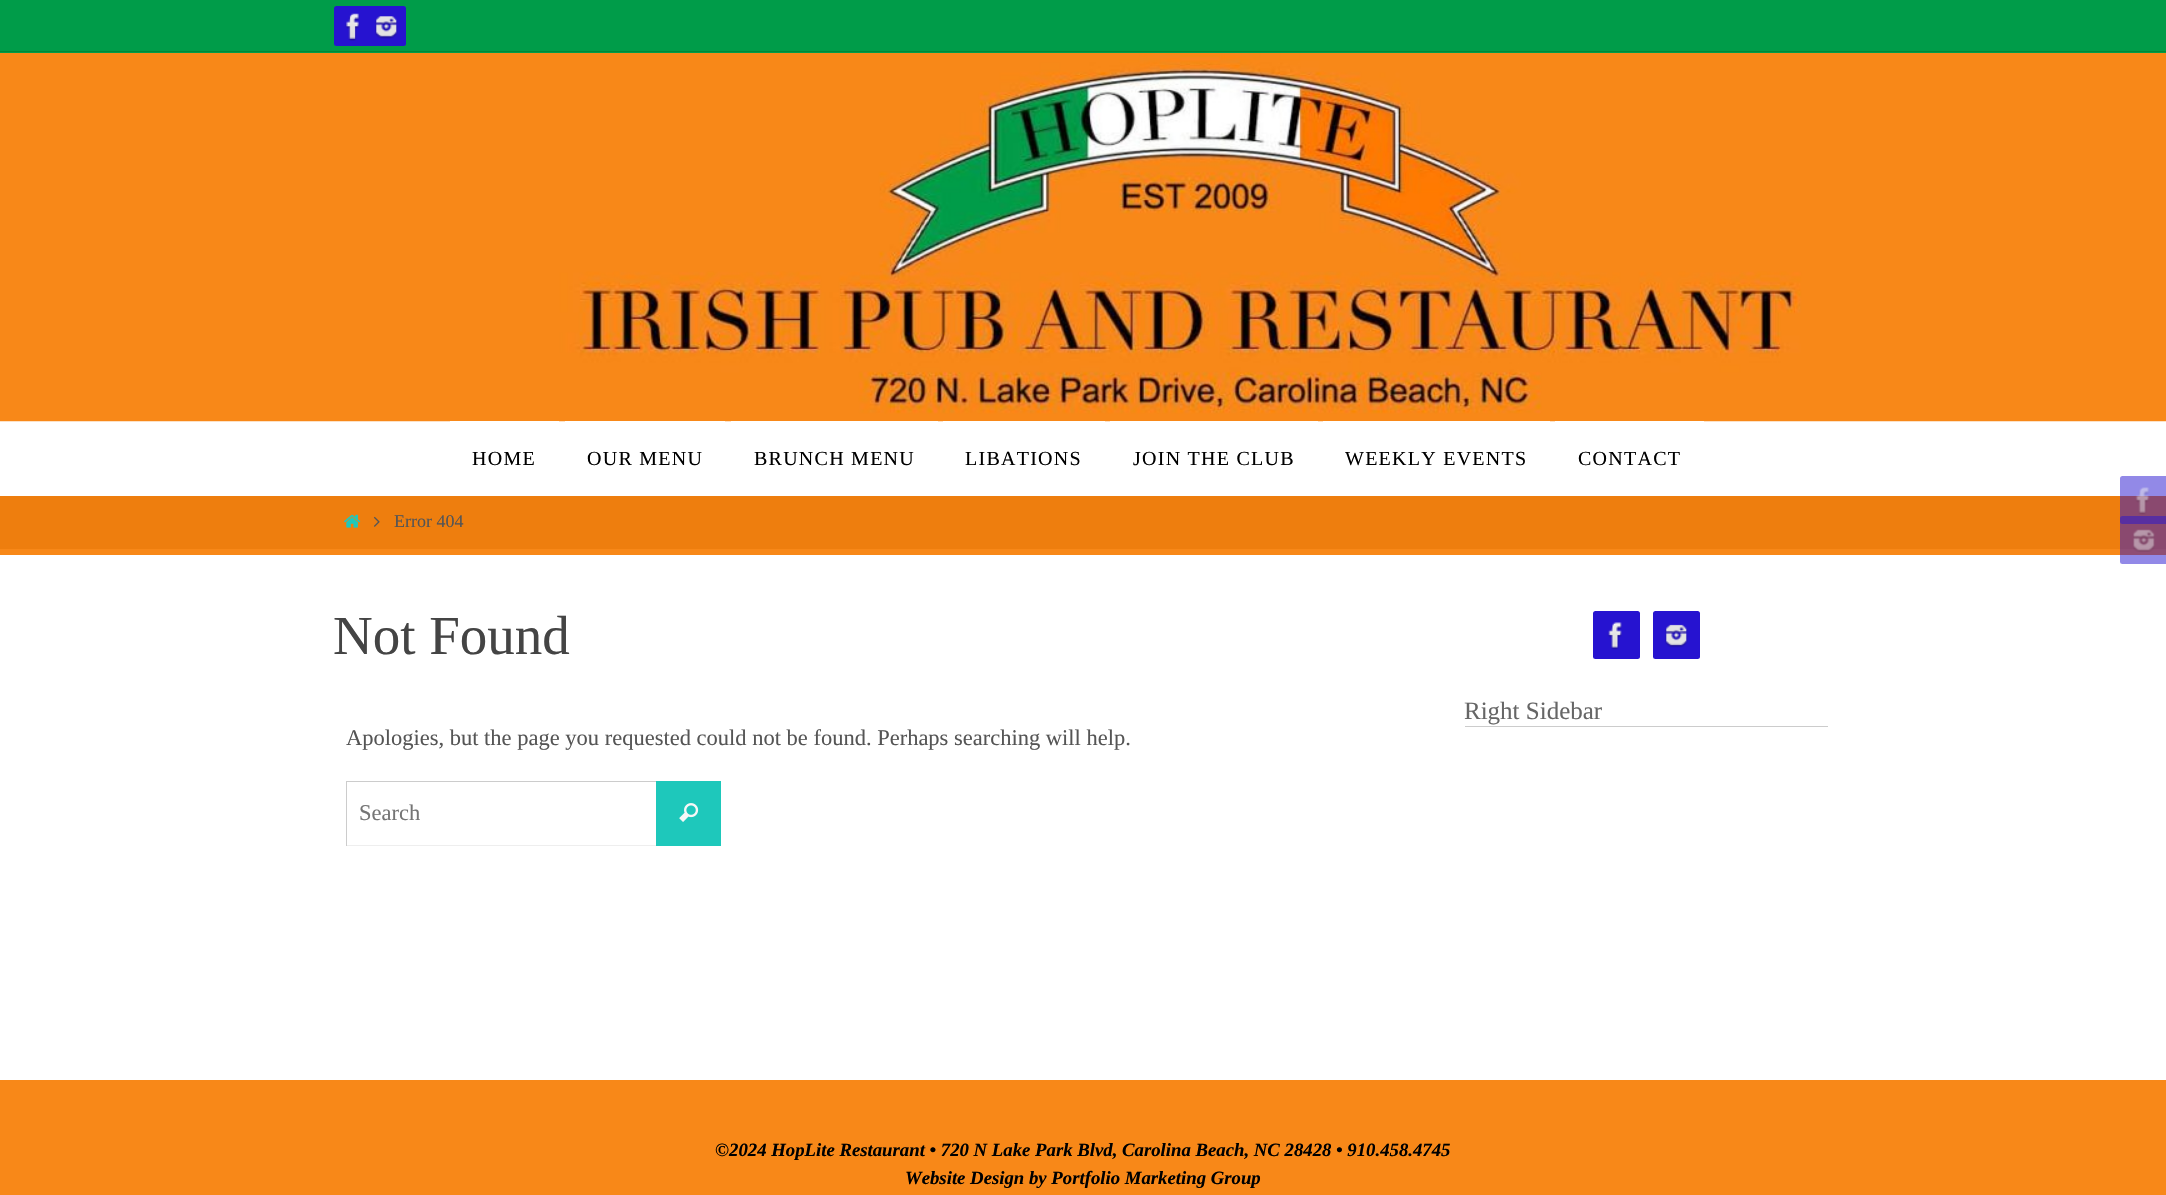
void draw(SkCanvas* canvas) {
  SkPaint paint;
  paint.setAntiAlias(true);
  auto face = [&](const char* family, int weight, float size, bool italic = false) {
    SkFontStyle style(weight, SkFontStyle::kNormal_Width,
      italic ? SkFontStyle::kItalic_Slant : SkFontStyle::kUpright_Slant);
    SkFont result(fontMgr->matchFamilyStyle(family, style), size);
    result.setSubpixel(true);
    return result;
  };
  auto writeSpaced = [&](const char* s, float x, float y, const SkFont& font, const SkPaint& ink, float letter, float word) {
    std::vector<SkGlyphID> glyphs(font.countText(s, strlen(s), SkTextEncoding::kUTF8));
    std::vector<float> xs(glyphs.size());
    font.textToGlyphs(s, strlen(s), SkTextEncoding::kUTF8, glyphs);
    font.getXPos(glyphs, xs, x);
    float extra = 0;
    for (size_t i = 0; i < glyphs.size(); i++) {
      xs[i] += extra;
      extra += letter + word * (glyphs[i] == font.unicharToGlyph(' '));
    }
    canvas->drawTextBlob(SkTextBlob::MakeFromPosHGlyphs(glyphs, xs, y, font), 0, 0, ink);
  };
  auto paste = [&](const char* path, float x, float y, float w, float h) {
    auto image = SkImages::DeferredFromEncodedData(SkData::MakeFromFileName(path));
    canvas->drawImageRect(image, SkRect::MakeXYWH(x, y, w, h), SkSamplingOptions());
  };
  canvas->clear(0xfff88818);
  paint.setColor(0xff009c49);
  canvas->drawRect(SkRect::MakeXYWH(0, 0, 2166, 53), paint);
  paint.setColor(0xff008835);
  canvas->drawRect(SkRect::MakeXYWH(0, 51, 2166, 1), paint);
  paint.setColor(0xff2613d0);
  canvas->drawRoundRect(SkRect::MakeXYWH(334, 6, 40, 40), 2.5f, 2.5f, paint);
  paste("img/1.png", 345, 13, 15, 28);
  canvas->drawRoundRect(SkRect::MakeXYWH(366, 6, 40, 40), 2.5f, 2.5f, paint);
  paste("img/2.png", 375, 16, 23, 23);
  paint.setColor(0xffffffff);
  canvas->drawRect(SkRect::MakeXYWH(0, 421, 2166, 75), paint);
  paste("img/3.png", 0, 53, 2166, 369);
  {
    const struct { float x, y, w, h; SkColor color; } items[] = {
      {450, 421, 109, 1, 0xffffffff},
      {565, 421, 160, 1, 0xffffffff},
      {731, 421, 207, 1, 0xffffffff},
      {943, 421, 162, 1, 0xffffffff},
      {1110, 421, 208, 1, 0xffffffff},
      {1323, 421, 227, 1, 0xffffffff},
      {1555, 421, 149, 1, 0xffffffff},
      {0, 496, 2166, 53, 0xffee7e0e},
    };
    for (auto [x, y, w, h, color] : items) {
      paint.setColor(color);
      canvas->drawRect(SkRect::MakeXYWH(x, y, w, h), paint);
    }
  }
  paste("img/4.png", 344, 514, 17, 14);
  paste("img/5.png", 373, 516, 7, 11);
  paint.setColor(0x802613d0);
  canvas->drawRoundRect(SkRect::MakeXYWH(2120, 476, 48, 48), 2.5f, 2.5f, paint);
  paste("img/6.png", 2135, 487, 15, 28);
  paint.setColor(0xffffffff);
  canvas->drawRect(SkRect::MakeXYWH(0, 555, 2166, 525), paint);
  paint.setColor(0x802613d0);
  canvas->drawRoundRect(SkRect::MakeXYWH(2120, 516, 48, 48), 2.5f, 2.5f, paint);
  paste("img/7.png", 2133, 529, 22, 23);
  {
    const struct { float x, y, w, h; SkColor color; } items[] = {
      {656, 781, 65, 65, 0xff1ec8bb},
      {346, 781, 310, 1, 0xffcccccc},
      {346, 845, 310, 1, 0xffeeeeee},
      {346, 781, 1, 65, 0xffcccccc},
    };
    for (auto [x, y, w, h, color] : items) {
      paint.setColor(color);
      canvas->drawRect(SkRect::MakeXYWH(x, y, w, h), paint);
    }
  }
  paste("img/8.png", 679, 803, 20, 19);
  paint.setColor(0xff2613d0);
  canvas->drawRoundRect(SkRect::MakeXYWH(1593, 611, 47, 48), 2.5f, 2.5f, paint);
  paste("img/9.png", 1607, 622, 15, 28);
  canvas->drawRoundRect(SkRect::MakeXYWH(1653, 611, 47, 48), 2.5f, 2.5f, paint);
  paste("img/10.png", 1665, 624, 23, 24);
  paint.setColor(0xffcccccc);
  canvas->drawRect(SkRect::MakeXYWH(1465, 726, 363, 1), paint);
  auto f0 = face("Liberation Serif", 400, 20);
  paint.setColor(0xff000000);
  {
    const struct { const char* s; float x, y; } items[] = {
      {"HOME", 472, 465},
      {"OUR MENU", 587, 465},
      {"BRUNCH MENU", 754, 465},
      {"LIBATIONS", 965, 465},
      {"JOIN THE CLUB", 1133, 465},
      {"WEEKLY EVENTS", 1345, 465},
      {"CONTACT", 1578, 465},
    };
    for (auto [s, x, y] : items) {
      writeSpaced(s, x, y, f0, paint, 1.25f, 0);
    }
  }
  auto f1 = face("Liberation Serif", 400, 18);
  paint.setColor(0xff555555);
  canvas->drawString("Error 404", 394, 527, f1, paint);
  auto f2 = face("Liberation Serif", 400, 55);
  paint.setColor(0xff444444);
  canvas->drawString("Not Found", 333, 654, f2, paint);
  auto f3 = face("Liberation Serif", 400, 22.5f);
  paint.setColor(0xff555555);
  canvas->drawString("Apologies, but the page you requested could not be found. Perhaps searching will help.", 346, 745, f3, paint);
  paint.setColor(0xff757575);
  canvas->drawString("Search", 359, 820, f3, paint);
  auto f4 = face("Liberation Serif", 400, 25);
  paint.setColor(0xff666666);
  canvas->drawString("Right Sidebar", 1464, 719, f4, paint);
  auto f5 = face("Liberation Serif", 700, 18.75f, true);
  paint.setColor(0xff000000);
  canvas->drawString("©2024 HopLite Restaurant • 720 N Lake Park Blvd, Carolina Beach, NC 28428 • 910.458.4745", 715, 1156, f5, paint);
  canvas->drawString("Website Design by Portfolio Marketing Group", 905, 1184, f5, paint);
}
